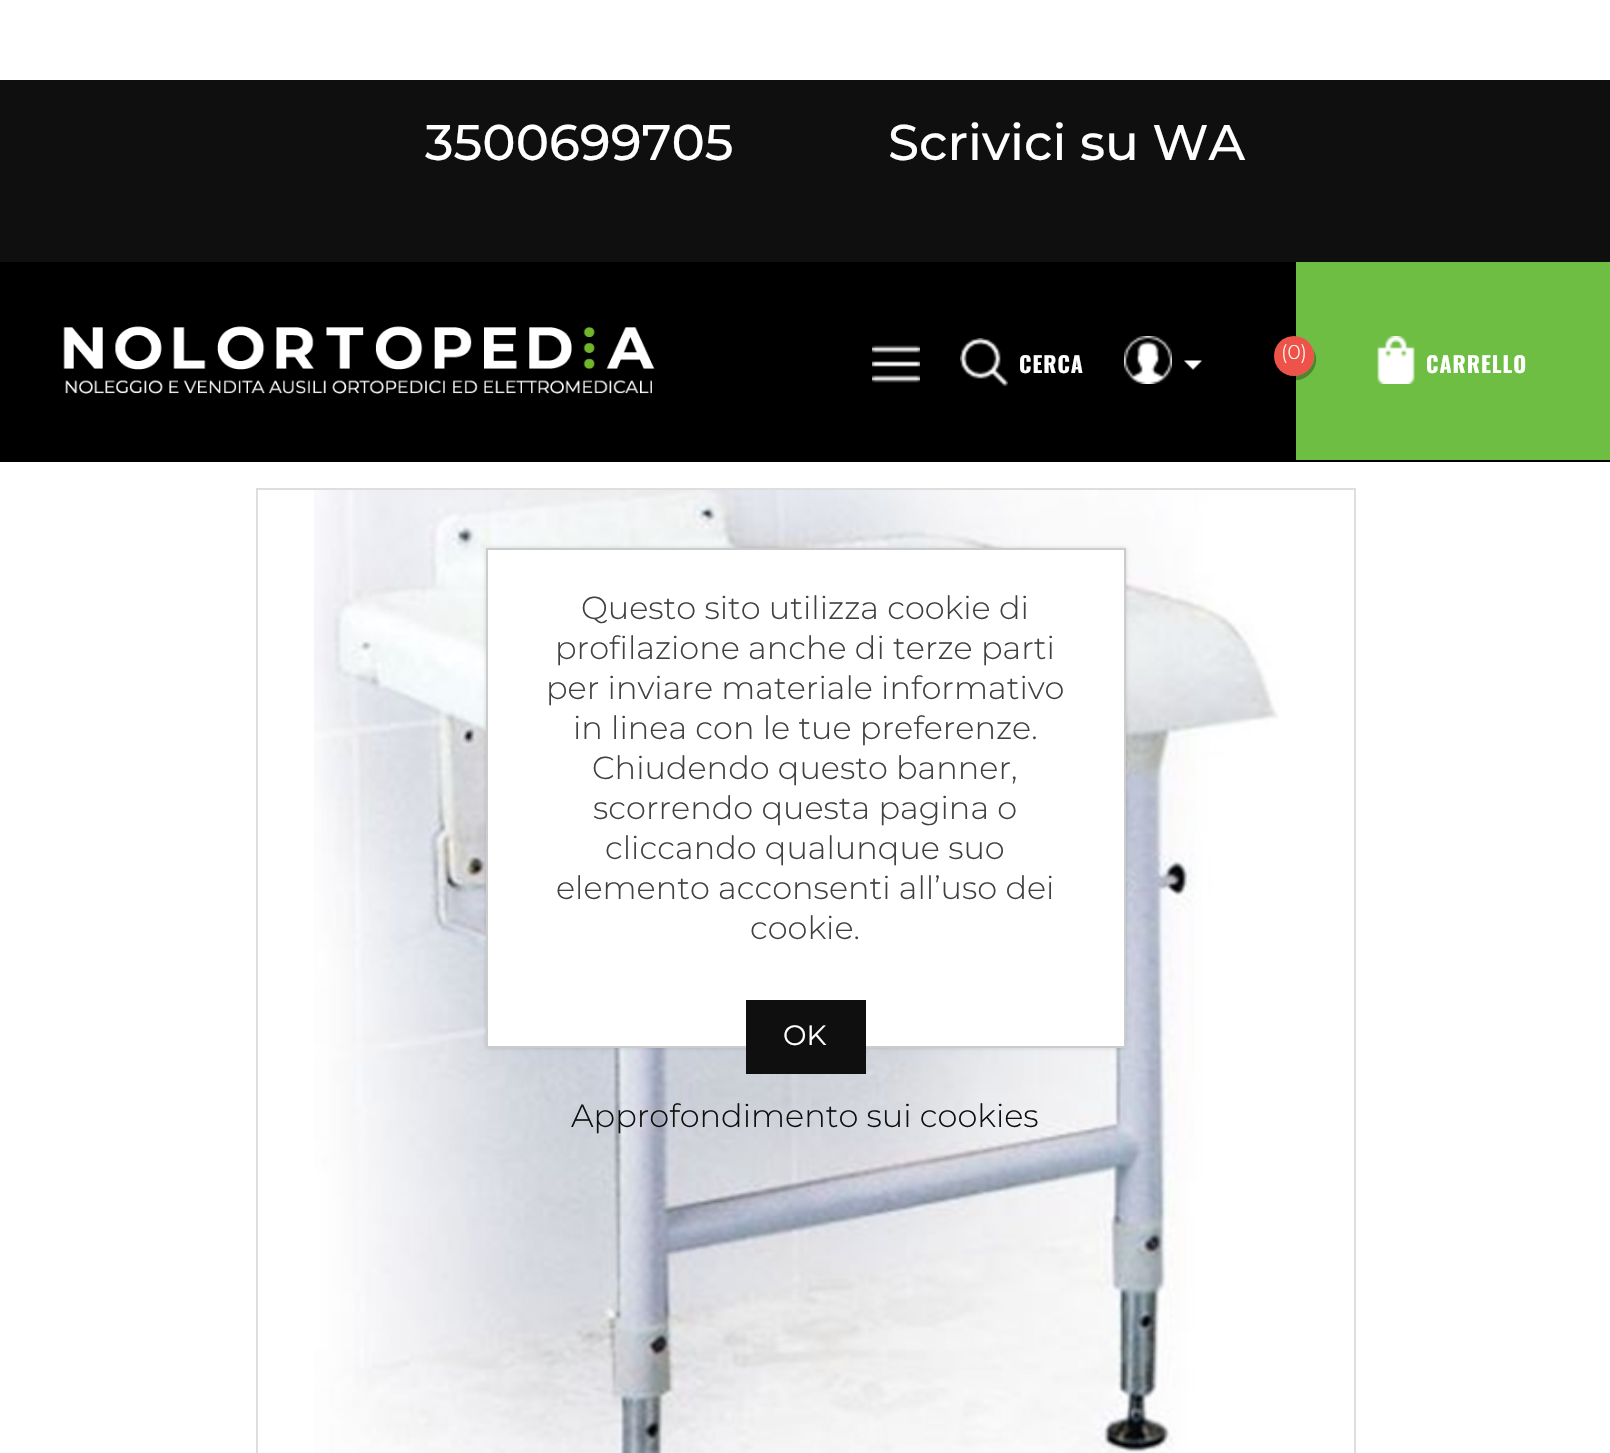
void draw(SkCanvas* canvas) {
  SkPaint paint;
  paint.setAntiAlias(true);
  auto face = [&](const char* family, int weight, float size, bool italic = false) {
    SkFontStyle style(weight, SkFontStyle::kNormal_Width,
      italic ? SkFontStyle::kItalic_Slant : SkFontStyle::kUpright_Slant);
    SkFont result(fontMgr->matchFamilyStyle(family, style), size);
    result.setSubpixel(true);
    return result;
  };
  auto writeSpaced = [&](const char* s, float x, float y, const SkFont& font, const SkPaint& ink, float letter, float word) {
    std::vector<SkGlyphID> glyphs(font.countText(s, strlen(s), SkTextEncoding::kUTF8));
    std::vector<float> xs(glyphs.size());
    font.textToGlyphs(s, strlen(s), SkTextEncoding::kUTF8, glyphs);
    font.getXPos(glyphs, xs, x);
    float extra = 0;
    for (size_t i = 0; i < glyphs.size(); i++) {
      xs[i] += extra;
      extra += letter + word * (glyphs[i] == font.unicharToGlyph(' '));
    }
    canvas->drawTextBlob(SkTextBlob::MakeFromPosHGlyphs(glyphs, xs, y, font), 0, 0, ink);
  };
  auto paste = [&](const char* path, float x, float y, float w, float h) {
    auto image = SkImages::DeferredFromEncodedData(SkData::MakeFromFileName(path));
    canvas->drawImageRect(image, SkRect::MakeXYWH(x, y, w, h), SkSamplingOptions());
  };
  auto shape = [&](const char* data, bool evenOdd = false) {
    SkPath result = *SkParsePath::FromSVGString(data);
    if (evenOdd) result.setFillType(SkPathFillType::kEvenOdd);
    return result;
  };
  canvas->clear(0xffffffff);
  paint.setColor(0xff0f0f0f);
  canvas->drawRect(SkRect::MakeXYWH(0, 80, 1610, 182), paint);
  paint.setColor(0xff000000);
  canvas->drawRect(SkRect::MakeXYWH(0, 262, 1610, 200), paint);
  paste("img/1.png", 63, 326, 592, 68);
  paste("img/2.png", 872, 345, 48, 38);
  paste("img/3.png", 960, 338, 48, 48);
  paste("img/4.png", 1124, 336, 48, 48);
  paste("img/5.png", 1184, 360, 18, 10);
  paint.setColor(0xff6ebe44);
  canvas->drawRect(SkRect::MakeXYWH(1296, 262, 314, 198), paint);
  paint.setColor(0x4d000000);
  canvas->drawPath(shape("M1277 367C1278.5 370.5 1281 374 1284.5 376.5C1302.5 389 1324.5 367 1313 349C1321 371.5 1290 386.5 1277 367Z"), paint);
  paint.setColor(0xffed5348);
  canvas->drawCircle(1294, 356, 20, paint);
  paste("img/6.png", 1377, 336, 38, 48);
  paint.setStroke(true);
  paint.setStrokeWidth(2);
  paint.setColor(0xffdedede);
  canvas->drawRect(SkRect::MakeXYWH(257, 489, 1098, 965), paint);
  paste("img/7.png", 314, 490, 965, 963);
  paint.setStroke(false);
  paint.setColor(0x26000000);
  paint.setMaskFilter(SkMaskFilter::MakeBlur(kNormal_SkBlurStyle, 2));
  canvas->drawRect(SkRect::MakeXYWH(486, 548, 640, 500), paint);
  paint.setMaskFilter(nullptr);
  paint.setColor(0xffffffff);
  canvas->drawRect(SkRect::MakeXYWH(487, 549, 638, 498), paint);
  paint.setStroke(true);
  paint.setColor(0xffcccccc);
  canvas->drawRect(SkRect::MakeXYWH(487, 549, 638, 498), paint);
  paint.setStroke(false);
  paint.setColor(0xff0f0f0f);
  canvas->drawRect(SkRect::MakeXYWH(746, 1000, 120, 74), paint);
  auto f0 = face("Montserrat", 500, 50);
  paint.setColor(0xffffffff);
  canvas->drawString("3500699705", 425, 160, f0, paint);
  canvas->drawString("Scrivici su WA", 888, 160, f0, paint);
  auto f1 = face("Oswald", 700, 22);
  writeSpaced("CERCA", 1019, 373, f1, paint, 1, 0);
  auto f2 = face("Montserrat", 300, 20);
  canvas->drawString("(0)", 1281, 359, f2, paint);
  writeSpaced("CARRELLO", 1426, 373, f1, paint, 1, 0);
  auto f3 = face("Montserrat", 300, 32);
  paint.setColor(0xff404040);
  {
    const struct { const char* s; float x, y; } items[] = {
      {"Questo sito utilizza cookie di", 581, 619},
      {"profilazione anche di terze parti", 555, 659},
      {"per inviare materiale informativo", 546, 699},
      {"in linea con le tue preferenze.", 573, 739},
      {"Chiudendo questo banner,", 592, 779},
      {"scorrendo questa pagina o", 593, 819},
      {"cliccando qualunque suo", 605, 859},
      {"elemento acconsenti all’uso dei", 556, 899},
      {"cookie.", 750, 939},
    };
    for (auto [s, x, y] : items) {
      canvas->drawString(s, x, y, f3, paint);
    }
  }
  auto f4 = face("Montserrat", 400, 28);
  paint.setColor(0xffffffff);
  canvas->drawString("OK", 783, 1045, f4, paint);
  paint.setColor(0xff0f0f0f);
  canvas->drawString("Approfondimento sui cookies", 571, 1127, f3, paint);
}
